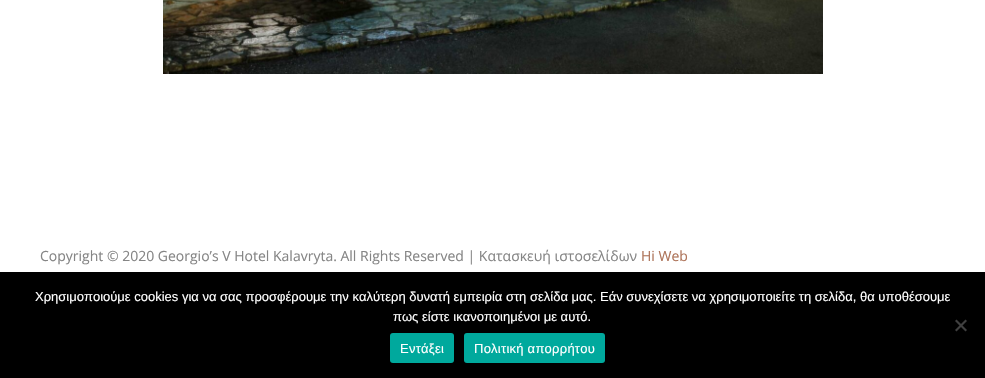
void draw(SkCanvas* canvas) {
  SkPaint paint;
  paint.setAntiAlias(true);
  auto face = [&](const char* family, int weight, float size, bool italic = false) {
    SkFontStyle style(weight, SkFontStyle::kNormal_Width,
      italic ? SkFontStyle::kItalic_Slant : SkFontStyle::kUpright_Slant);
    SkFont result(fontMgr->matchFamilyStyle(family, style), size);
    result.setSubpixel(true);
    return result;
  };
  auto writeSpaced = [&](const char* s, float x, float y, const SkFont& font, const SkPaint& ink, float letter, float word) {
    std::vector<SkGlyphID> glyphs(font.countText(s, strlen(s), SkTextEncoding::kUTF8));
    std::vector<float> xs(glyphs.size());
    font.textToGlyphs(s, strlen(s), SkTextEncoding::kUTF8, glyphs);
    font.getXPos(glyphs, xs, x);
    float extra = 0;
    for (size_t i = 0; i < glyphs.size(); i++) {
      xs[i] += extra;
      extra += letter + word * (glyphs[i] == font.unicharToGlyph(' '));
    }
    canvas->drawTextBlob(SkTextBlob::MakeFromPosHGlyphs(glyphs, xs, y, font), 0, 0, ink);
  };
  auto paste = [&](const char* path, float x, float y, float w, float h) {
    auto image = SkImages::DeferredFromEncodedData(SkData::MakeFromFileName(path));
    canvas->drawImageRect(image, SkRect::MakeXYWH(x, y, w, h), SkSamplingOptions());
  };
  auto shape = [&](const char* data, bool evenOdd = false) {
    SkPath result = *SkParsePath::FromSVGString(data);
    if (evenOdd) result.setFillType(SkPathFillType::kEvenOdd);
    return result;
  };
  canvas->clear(0xffffffff);
  paste("img/1.png", 163, 0, 660, 74);
  paint.setColor(0xff000000);
  canvas->drawRect(SkRect::MakeXYWH(0, 272, 985, 106), paint);
  paint.setColor(0xff404040);
  canvas->drawPath(shape("M965.5 319.5L967 321L956.5 331.5L955 330Z"), paint);
  canvas->drawPath(shape("M955 321L956.5 319.5L967 330L965.5 331.5Z"), paint);
  paint.setColor(0xff00a99d);
  canvas->drawRoundRect(SkRect::MakeXYWH(390, 333, 64, 30), 3, 3, paint);
  canvas->drawRoundRect(SkRect::MakeXYWH(464, 333, 141, 30), 3, 3, paint);
  auto f0 = face("Open Sans", 400, 14);
  paint.setColor(0xff858585);
  canvas->drawString("Copyright © 2020 Georgio’s V Hotel Kalavryta. All Rights Reserved | Κατασκευή ιστοσελίδων", 40, 261, f0, paint);
  paint.setColor(0xffae745a);
  canvas->drawString("Hi Web", 641, 261, f0, paint);
  auto f1 = face("Liberation Sans", 400, 13);
  paint.setColor(0xffffffff);
  canvas->drawString("Χρησιμοποιούμε cookies για να σας προσφέρουμε την καλύτερη δυνατή εμπειρία στη σελίδα μας. Εάν συνεχίσετε να χρησιμοποιείτε τη σελίδα, θα υποθέσουμε", 35, 301, f1, paint);
  canvas->drawString("πως είστε ικανοποιημένοι με αυτό.", 393, 321, f1, paint);
  writeSpaced("Εντάξει", 400, 353, f1, paint, 0.25f, 0);
  writeSpaced("Πολιτική απορρήτου", 474, 353, f1, paint, 0.25f, 0);
}
